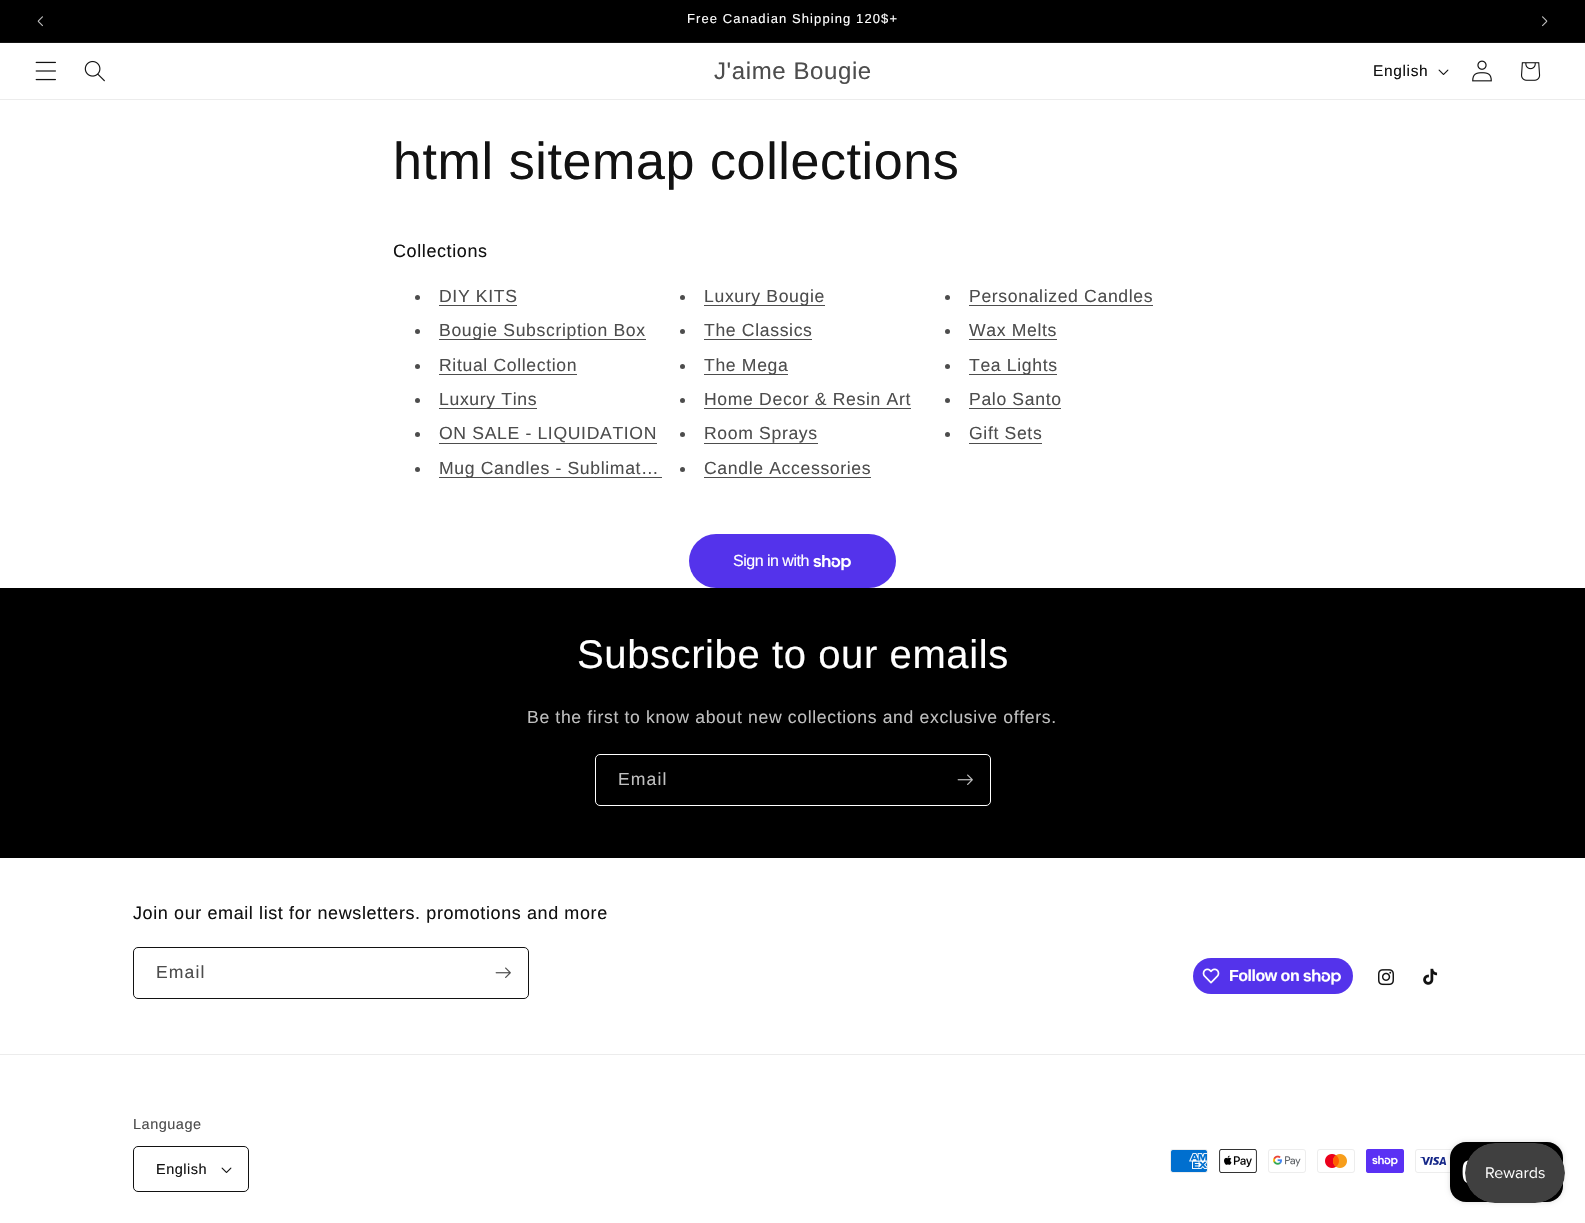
void draw(SkCanvas* canvas) {
  SkPaint paint;
  paint.setAntiAlias(true);
  auto face = [&](const char* family, int weight, float size, bool italic = false) {
    SkFontStyle style(weight, SkFontStyle::kNormal_Width,
      italic ? SkFontStyle::kItalic_Slant : SkFontStyle::kUpright_Slant);
    SkFont result(fontMgr->matchFamilyStyle(family, style), size);
    result.setSubpixel(true);
    return result;
  };
  auto writeSpaced = [&](const char* s, float x, float y, const SkFont& font, const SkPaint& ink, float letter, float word) {
    std::vector<SkGlyphID> glyphs(font.countText(s, strlen(s), SkTextEncoding::kUTF8));
    std::vector<float> xs(glyphs.size());
    font.textToGlyphs(s, strlen(s), SkTextEncoding::kUTF8, glyphs);
    font.getXPos(glyphs, xs, x);
    float extra = 0;
    for (size_t i = 0; i < glyphs.size(); i++) {
      xs[i] += extra;
      extra += letter + word * (glyphs[i] == font.unicharToGlyph(' '));
    }
    canvas->drawTextBlob(SkTextBlob::MakeFromPosHGlyphs(glyphs, xs, y, font), 0, 0, ink);
  };
  auto paste = [&](const char* path, float x, float y, float w, float h) {
    auto image = SkImages::DeferredFromEncodedData(SkData::MakeFromFileName(path));
    canvas->drawImageRect(image, SkRect::MakeXYWH(x, y, w, h), SkSamplingOptions());
  };
  canvas->clear(0xffffffff);
  paint.setColor(0xff000000);
  canvas->drawRect(SkRect::MakeXYWH(0, 0, 1585, 42), paint);
  paint.setColor(0xff141414);
  canvas->drawRect(SkRect::MakeXYWH(0, 42, 1585, 1), paint);
  paste("img/1.png", 37, 16, 6, 11);
  paste("img/2.png", 1542, 16, 6, 11);
  paint.setColor(0xffececec);
  canvas->drawRect(SkRect::MakeXYWH(0, 99, 1585, 1), paint);
  paste("img/3.png", 35, 61, 21, 20);
  paste("img/4.png", 84, 60, 21, 22);
  paste("img/5.png", 1438, 69, 11, 6);
  paste("img/6.png", 1472, 60, 20, 22);
  paste("img/7.png", 1521, 62, 20, 19);
  paint.setColor(0xff4d4d4d);
  canvas->drawCircle(417.5f, 297.5f, 2.5f, paint);
  canvas->drawRect(SkRect::MakeXYWH(439, 305, 78, 1), paint);
  canvas->drawCircle(682.5f, 297.5f, 2.5f, paint);
  canvas->drawRect(SkRect::MakeXYWH(704, 305, 121, 1), paint);
  canvas->drawCircle(947.5f, 297.5f, 2.5f, paint);
  canvas->drawRect(SkRect::MakeXYWH(969, 305, 184, 1), paint);
  canvas->drawCircle(417.5f, 331.5f, 2.5f, paint);
  canvas->drawRect(SkRect::MakeXYWH(439, 339, 207, 1), paint);
  canvas->drawCircle(682.5f, 331.5f, 2.5f, paint);
  canvas->drawRect(SkRect::MakeXYWH(704, 339, 108, 1), paint);
  canvas->drawCircle(947.5f, 331.5f, 2.5f, paint);
  canvas->drawRect(SkRect::MakeXYWH(969, 339, 88, 1), paint);
  canvas->drawCircle(417.5f, 366.5f, 2.5f, paint);
  canvas->drawRect(SkRect::MakeXYWH(439, 374, 138, 1), paint);
  canvas->drawCircle(682.5f, 366.5f, 2.5f, paint);
  canvas->drawRect(SkRect::MakeXYWH(704, 374, 84, 1), paint);
  canvas->drawCircle(947.5f, 366.5f, 2.5f, paint);
  canvas->drawRect(SkRect::MakeXYWH(969, 374, 88, 1), paint);
  canvas->drawCircle(417.5f, 400.5f, 2.5f, paint);
  canvas->drawRect(SkRect::MakeXYWH(439, 408, 98, 1), paint);
  canvas->drawCircle(682.5f, 400.5f, 2.5f, paint);
  canvas->drawRect(SkRect::MakeXYWH(704, 408, 207, 1), paint);
  canvas->drawCircle(947.5f, 400.5f, 2.5f, paint);
  canvas->drawRect(SkRect::MakeXYWH(969, 408, 92, 1), paint);
  canvas->drawCircle(417.5f, 434.5f, 2.5f, paint);
  canvas->drawRect(SkRect::MakeXYWH(439, 443, 218, 1), paint);
  canvas->drawCircle(682.5f, 434.5f, 2.5f, paint);
  canvas->drawRect(SkRect::MakeXYWH(704, 443, 114, 1), paint);
  canvas->drawCircle(947.5f, 434.5f, 2.5f, paint);
  canvas->drawRect(SkRect::MakeXYWH(969, 443, 73, 1), paint);
  canvas->drawCircle(417.5f, 469.5f, 2.5f, paint);
  canvas->drawRect(SkRect::MakeXYWH(439, 477, 223, 1), paint);
  canvas->drawCircle(682.5f, 469.5f, 2.5f, paint);
  canvas->drawRect(SkRect::MakeXYWH(704, 477, 167, 1), paint);
  paint.setColor(0xff5433eb);
  canvas->drawRoundRect(SkRect::MakeXYWH(689, 534, 207, 54), 27, 27, paint);
  paste("img/8.png", 813, 555, 38, 16);
  paint.setColor(0xff000000);
  canvas->drawRect(SkRect::MakeXYWH(0, 588, 1585, 270), paint);
  paint.setStroke(true);
  paint.setStrokeWidth(1);
  paint.setColor(0xffffffff);
  canvas->drawRoundRect(SkRect::MakeXYWH(595.5f, 754.5f, 395, 51), 4.5f, 4.5f, paint);
  paste("img/9.png", 957, 774, 16, 11);
  paint.setColor(0xff121212);
  canvas->drawRoundRect(SkRect::MakeXYWH(133.5f, 947.5f, 395, 51), 4.5f, 4.5f, paint);
  paste("img/10.png", 495, 967, 16, 11);
  paint.setStroke(false);
  paint.setColor(0xff5433eb);
  canvas->drawRoundRect(SkRect::MakeXYWH(1193, 958, 160, 36), 18, 18, paint);
  paste("img/11.png", 1202, 968, 18, 16);
  paste("img/12.png", 1303, 969, 38, 16);
  paste("img/13.png", 1378, 969, 16, 17);
  paste("img/14.png", 1423, 968, 15, 17);
  paint.setColor(0xffececec);
  canvas->drawRect(SkRect::MakeXYWH(0, 1054, 1585, 1), paint);
  paste("img/5.png", 221, 1167, 11, 6);
  paint.setStroke(true);
  paint.setColor(0xff121212);
  canvas->drawRoundRect(SkRect::MakeXYWH(133.5f, 1146.5f, 115, 45), 4.5f, 4.5f, paint);
  paste("img/15.png", 1170, 1149, 38, 24);
  paste("img/16.png", 1219, 1149, 38, 24);
  paste("img/17.png", 1268, 1149, 38, 24);
  paste("img/18.png", 1317, 1149, 38, 24);
  paste("img/19.png", 1366, 1149, 38, 24);
  paste("img/20.png", 1415, 1149, 38, 24);
  paint.setStroke(false);
  paint.setColor(0x26000000);
  paint.setMaskFilter(SkMaskFilter::MakeBlur(kNormal_SkBlurStyle, 2.5f));
  canvas->drawRoundRect(SkRect::MakeXYWH(1450, 1142, 113, 60), 16, 16, paint);
  paint.setMaskFilter(nullptr);
  paint.setColor(0xff000000);
  canvas->drawRoundRect(SkRect::MakeXYWH(1450, 1142, 113, 60), 16, 16, paint);
  paste("img/21.png", 1462, 1160, 7, 24);
  paste("img/22.png", 1465, 1143, 100, 60);
  auto f0 = face("Liberation Sans", 400, 13);
  paint.setColor(0xffffffff);
  writeSpaced("Free Canadian Shipping 120$+", 687, 23, f0, paint, 1.1f, 0);
  auto f1 = face("Liberation Sans", 400, 24);
  paint.setColor(0xff4d4d4d);
  writeSpaced("J'aime Bougie", 714, 79, f1, paint, 0.6f, 0);
  auto f2 = face("Liberation Sans", 400, 15.5f);
  paint.setColor(0xff121212);
  writeSpaced("English", 1373, 76, f2, paint, 0.65f, 0);
  auto f3 = face("Liberation Sans", 400, 52);
  writeSpaced("html sitemap collections", 393, 179, f3, paint, 0.6f, 0);
  auto f4 = face("Liberation Sans", 400, 18);
  writeSpaced("Collections", 393, 257, f4, paint, 0.6f, 0);
  auto f5 = face("Liberation Sans", 400, 17.6f);
  paint.setColor(0xff4d4d4d);
  {
    const struct { const char* s; float x, y; } items[] = {
      {"DIY KITS", 439, 302},
      {"Luxury Bougie", 704, 302},
      {"Personalized Candles", 969, 302},
      {"Bougie Subscription Box", 439, 336},
      {"The Classics", 704, 336},
      {"Wax Melts", 969, 336},
      {"Ritual Collection", 439, 371},
      {"The Mega", 704, 371},
      {"Tea Lights", 969, 371},
      {"Luxury Tins", 439, 405},
      {"Home Decor & Resin Art", 704, 405},
      {"Palo Santo", 969, 405},
      {"ON SALE - LIQUIDATION", 439, 439},
      {"Room Sprays", 704, 439},
      {"Gift Sets", 969, 439},
      {"Mug Candles - Sublimat…", 439, 474},
      {"Candle Accessories", 704, 474},
    };
    for (auto [s, x, y] : items) {
      writeSpaced(s, x, y, f5, paint, 0.65f, 0);
    }
  }
  auto f6 = face("Liberation Sans", 400, 16);
  paint.setColor(0xffffffff);
  writeSpaced("Sign in with", 733, 566, f6, paint, -0.5f, 0);
  auto f7 = face("Liberation Sans", 400, 40);
  writeSpaced("Subscribe to our emails", 577, 668, f7, paint, 0.6f, 0);
  paint.setColor(0xffbfbfbf);
  writeSpaced("Be the first to know about new collections and exclusive offers.", 527, 723, f5, paint, 0.65f, 0);
  writeSpaced("Email", 618, 785, f5, paint, 1.1f, 0);
  paint.setColor(0xff121212);
  writeSpaced("Join our email list for newsletters. promotions and more", 133, 919, f4, paint, 0.6f, 0);
  paint.setColor(0xff4d4d4d);
  writeSpaced("Email", 156, 978, f5, paint, 1.1f, 0);
  auto f8 = face("Liberation Sans", 700, 16);
  paint.setColor(0xffffffff);
  writeSpaced("Follow on", 1229, 981, f8, paint, -0.5f, 0);
  auto f9 = face("Liberation Sans", 400, 14.5f);
  paint.setColor(0xff4d4d4d);
  writeSpaced("Language", 133, 1129, f9, paint, 0.5f, 0);
  paint.setColor(0xff121212);
  writeSpaced("English", 156, 1174, f9, paint, 0.5f, 0);
}
